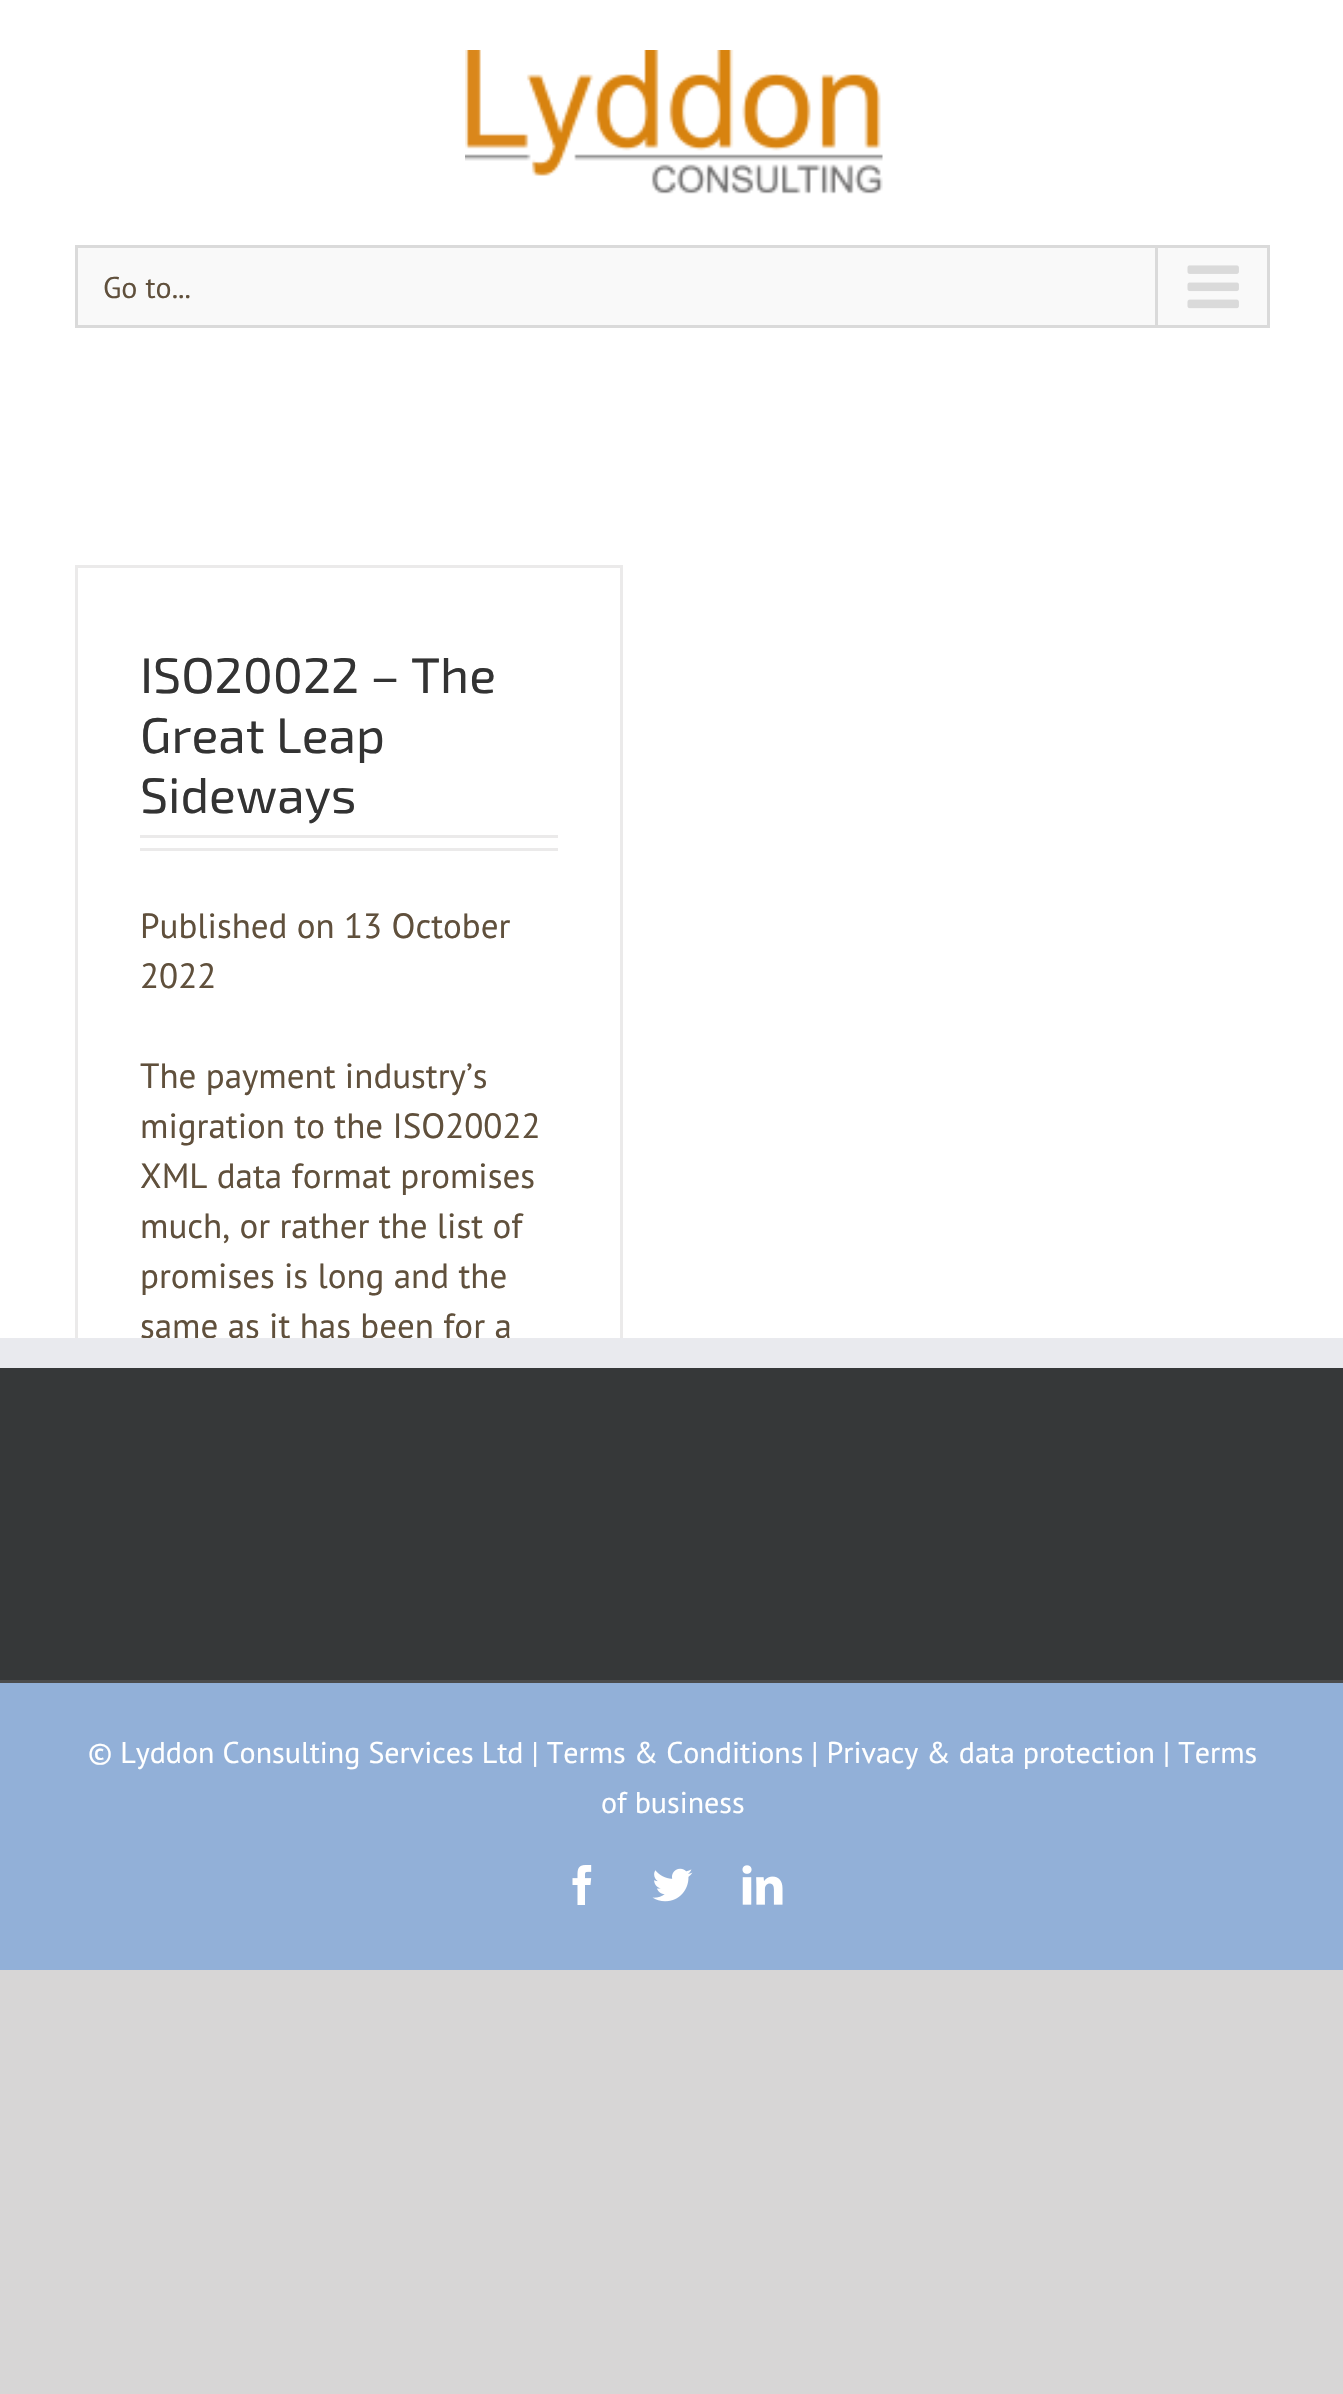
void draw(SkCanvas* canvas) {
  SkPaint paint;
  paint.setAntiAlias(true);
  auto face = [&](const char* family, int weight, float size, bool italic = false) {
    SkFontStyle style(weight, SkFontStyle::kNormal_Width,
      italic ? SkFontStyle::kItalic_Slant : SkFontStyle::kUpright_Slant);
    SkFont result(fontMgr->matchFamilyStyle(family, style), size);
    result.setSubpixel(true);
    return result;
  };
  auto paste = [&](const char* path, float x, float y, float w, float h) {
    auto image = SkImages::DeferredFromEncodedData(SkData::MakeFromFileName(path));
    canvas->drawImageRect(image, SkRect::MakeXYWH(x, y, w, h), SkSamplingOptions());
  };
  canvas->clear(0xffd7d6d6);
  paint.setColor(0xffffffff);
  canvas->drawRect(SkRect::MakeXYWH(0, 0, 1343, 1338), paint);
  paste("img/1.png", 465, 50, 418, 144);
  paint.setColor(0xfff9f9f9);
  canvas->drawRect(SkRect::MakeXYWH(76.5f, 246.5f, 1192, 80), paint);
  paint.setStroke(true);
  paint.setStrokeWidth(3);
  paint.setColor(0xffdadada);
  canvas->drawRect(SkRect::MakeXYWH(76.5f, 246.5f, 1192, 80), paint);
  paint.setStroke(false);
  canvas->drawRect(SkRect::MakeXYWH(1155, 248, 3, 77), paint);
  paste("img/2.png", 1187, 265, 52, 44);
  {
    const struct { float x, y, w, h; SkColor color; } items[] = {
      {75, 565, 548, 3, 0xffebeaea},
      {620, 565, 3, 773, 0xffebeaea},
      {75, 565, 3, 773, 0xffebeaea},
      {140, 835, 418, 3, 0xffebeaea},
      {140, 848, 418, 3, 0xffebeaea},
      {0, 1368, 1343, 312, 0xff363839},
      {0, 1683, 1343, 287, 0xff92b0d8},
      {0, 1680, 1343, 3, 0xff4b4c4d},
    };
    for (auto [x, y, w, h, color] : items) {
      paint.setColor(color);
      canvas->drawRect(SkRect::MakeXYWH(x, y, w, h), paint);
    }
  }
  paste("img/3.png", 572, 1865, 20, 40);
  paste("img/4.png", 652, 1868, 41, 34);
  paste("img/5.png", 742, 1865, 41, 40);
  auto f0 = face("PT Sans", 400, 30);
  paint.setColor(0xff60503c);
  canvas->drawString("Go to...", 103, 298, f0, paint);
  auto f1 = face("Exo 2", 400, 50);
  paint.setColor(0xff333333);
  {
    const struct { const char* s; float x, y; } items[] = {
      {"ISO20022 – The", 140, 693},
      {"Great Leap", 140, 753},
      {"Sideways", 140, 813},
    };
    for (auto [s, x, y] : items) {
      canvas->drawString(s, x, y, f1, paint);
    }
  }
  auto f2 = face("PT Sans", 400, 35);
  paint.setColor(0xff60503c);
  {
    const struct { const char* s; float x, y; } items[] = {
      {"Published on 13 October", 140, 938},
      {"2022", 140, 988},
      {"The payment industry’s", 140, 1088},
      {"migration to the ISO20022", 140, 1138},
      {"XML data format promises", 140, 1188},
      {"much, or rather the list of", 140, 1238},
      {"promises is long and the", 140, 1288},
      {"same as it has been for a", 140, 1338},
    };
    for (auto [s, x, y] : items) {
      canvas->drawString(s, x, y, f2, paint);
    }
  }
  paint.setColor(0xffe9eaee);
  canvas->drawRect(SkRect::MakeXYWH(0, 1338, 1343, 30), paint);
  paint.setColor(0xffffffff);
  canvas->drawString("© Lyddon Consulting Services Ltd | Terms & Conditions | Privacy & data protection | Terms", 88, 1763, f0, paint);
  canvas->drawString("of business", 601, 1813, f0, paint);
}
